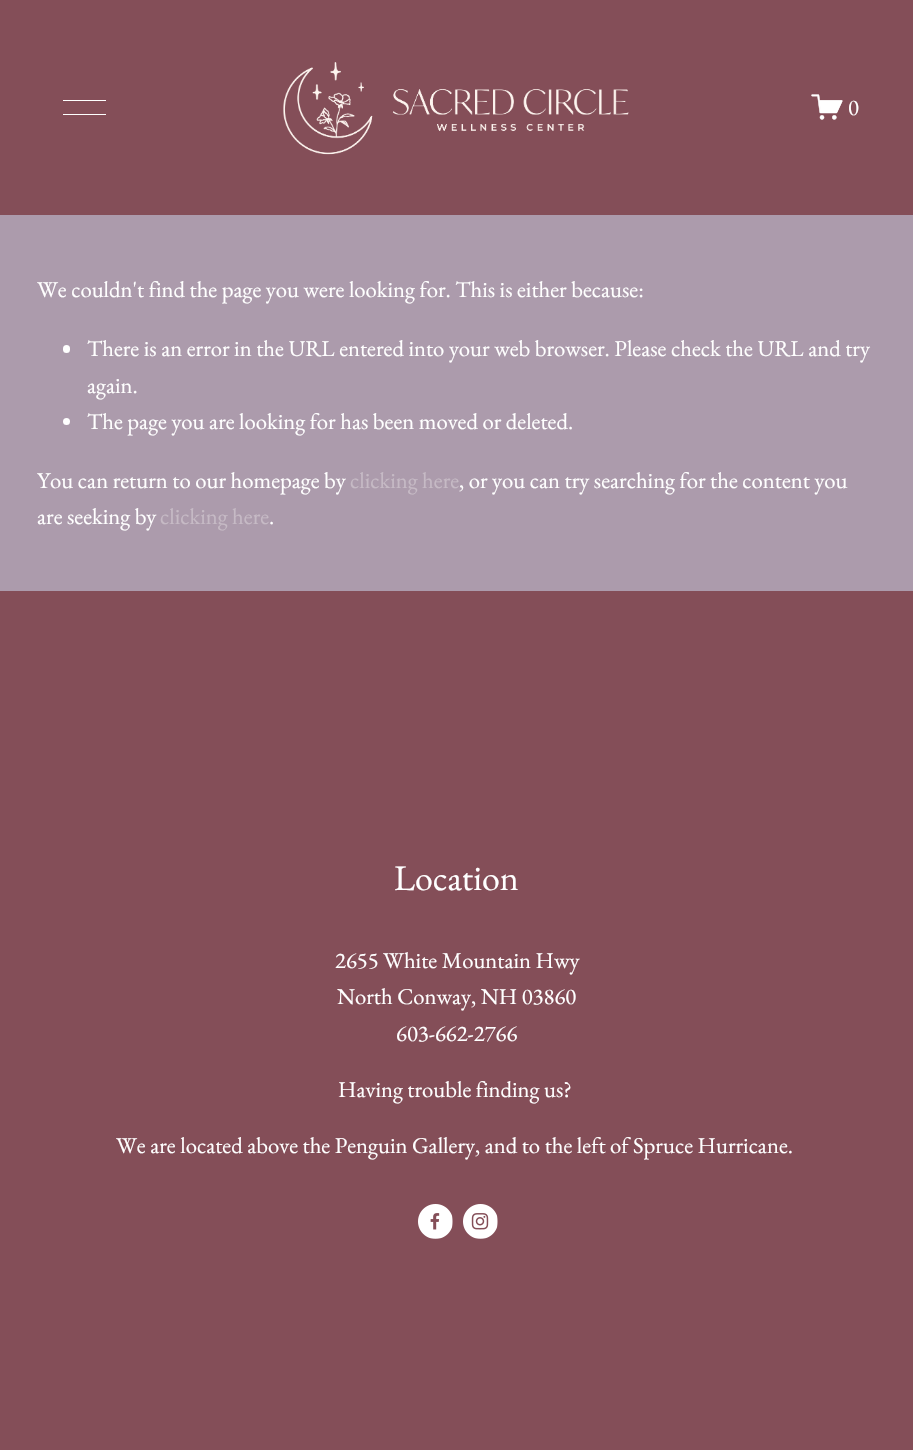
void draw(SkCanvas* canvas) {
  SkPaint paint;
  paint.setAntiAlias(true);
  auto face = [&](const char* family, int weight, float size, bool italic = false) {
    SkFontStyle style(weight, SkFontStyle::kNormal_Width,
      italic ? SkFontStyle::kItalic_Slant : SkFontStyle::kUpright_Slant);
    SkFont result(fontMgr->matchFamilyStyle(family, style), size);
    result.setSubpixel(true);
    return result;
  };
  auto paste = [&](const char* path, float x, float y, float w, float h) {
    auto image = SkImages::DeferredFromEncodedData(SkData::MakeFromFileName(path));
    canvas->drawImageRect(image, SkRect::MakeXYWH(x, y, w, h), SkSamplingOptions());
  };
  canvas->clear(0xffac9bac);
  {
    const struct { float x, y, w, h; SkColor color; } items[] = {
      {0, 0, 913, 215, 0xff844e58},
      {63, 100, 43, 1, 0xffffffff},
      {63, 114, 43, 1, 0xffffffff},
    };
    for (auto [x, y, w, h, color] : items) {
      paint.setColor(color);
      canvas->drawRect(SkRect::MakeXYWH(x, y, w, h), paint);
    }
  }
  paste("img/1.png", 283, 62, 346, 93);
  paste("img/2.png", 811, 94, 32, 26);
  canvas->drawRoundRect(SkRect::MakeXYWH(63, 345, 7, 8), 3.5f, 3.5f, paint);
  canvas->drawCircle(66.5f, 421.5f, 3.5f, paint);
  paint.setColor(0xff844e58);
  canvas->drawRect(SkRect::MakeXYWH(0, 591, 913, 859), paint);
  paste("img/3.png", 418, 1204, 35, 35);
  paste("img/4.png", 463, 1204, 35, 35);
  auto f0 = face("EB Garamond", 400, 22.7f);
  paint.setColor(0xffffffff);
  {
    const struct { const char* s; float x, y; } items[] = {
      {"0", 848, 115},
      {"We couldn't find the page you were looking for. This is either because:", 37, 297},
      {"There is an error in the URL entered into your web browser. Please check the URL and try", 87, 356},
      {"again.", 87, 393},
      {"The page you are looking for has been moved or deleted.", 87, 429},
      {"You can return to our homepage by", 37, 488},
    };
    for (auto [s, x, y] : items) {
      canvas->drawString(s, x, y, f0, paint);
    }
  }
  paint.setColor(0xffc6bac5);
  canvas->drawString("clicking here", 350, 488, f0, paint);
  paint.setColor(0xffffffff);
  canvas->drawString(", or you can try searching for the content you", 459, 488, f0, paint);
  canvas->drawString("are seeking by", 37, 524, f0, paint);
  paint.setColor(0xffc6bac5);
  canvas->drawString("clicking here", 160, 524, f0, paint);
  paint.setColor(0xffffffff);
  canvas->drawString(".", 269, 524, f0, paint);
  auto f1 = face("EB Garamond", 400, 36);
  canvas->drawString("Location", 394, 890, f1, paint);
  {
    const struct { const char* s; float x, y; } items[] = {
      {"2655 White Mountain Hwy", 335, 968},
      {"North Conway, NH 03860", 337, 1004},
      {"603-662-2766", 396, 1041},
      {"Having trouble finding us?", 338, 1097},
      {"We are located above the Penguin Gallery, and to the left of Spruce Hurricane.", 116, 1153},
    };
    for (auto [s, x, y] : items) {
      canvas->drawString(s, x, y, f0, paint);
    }
  }
}
